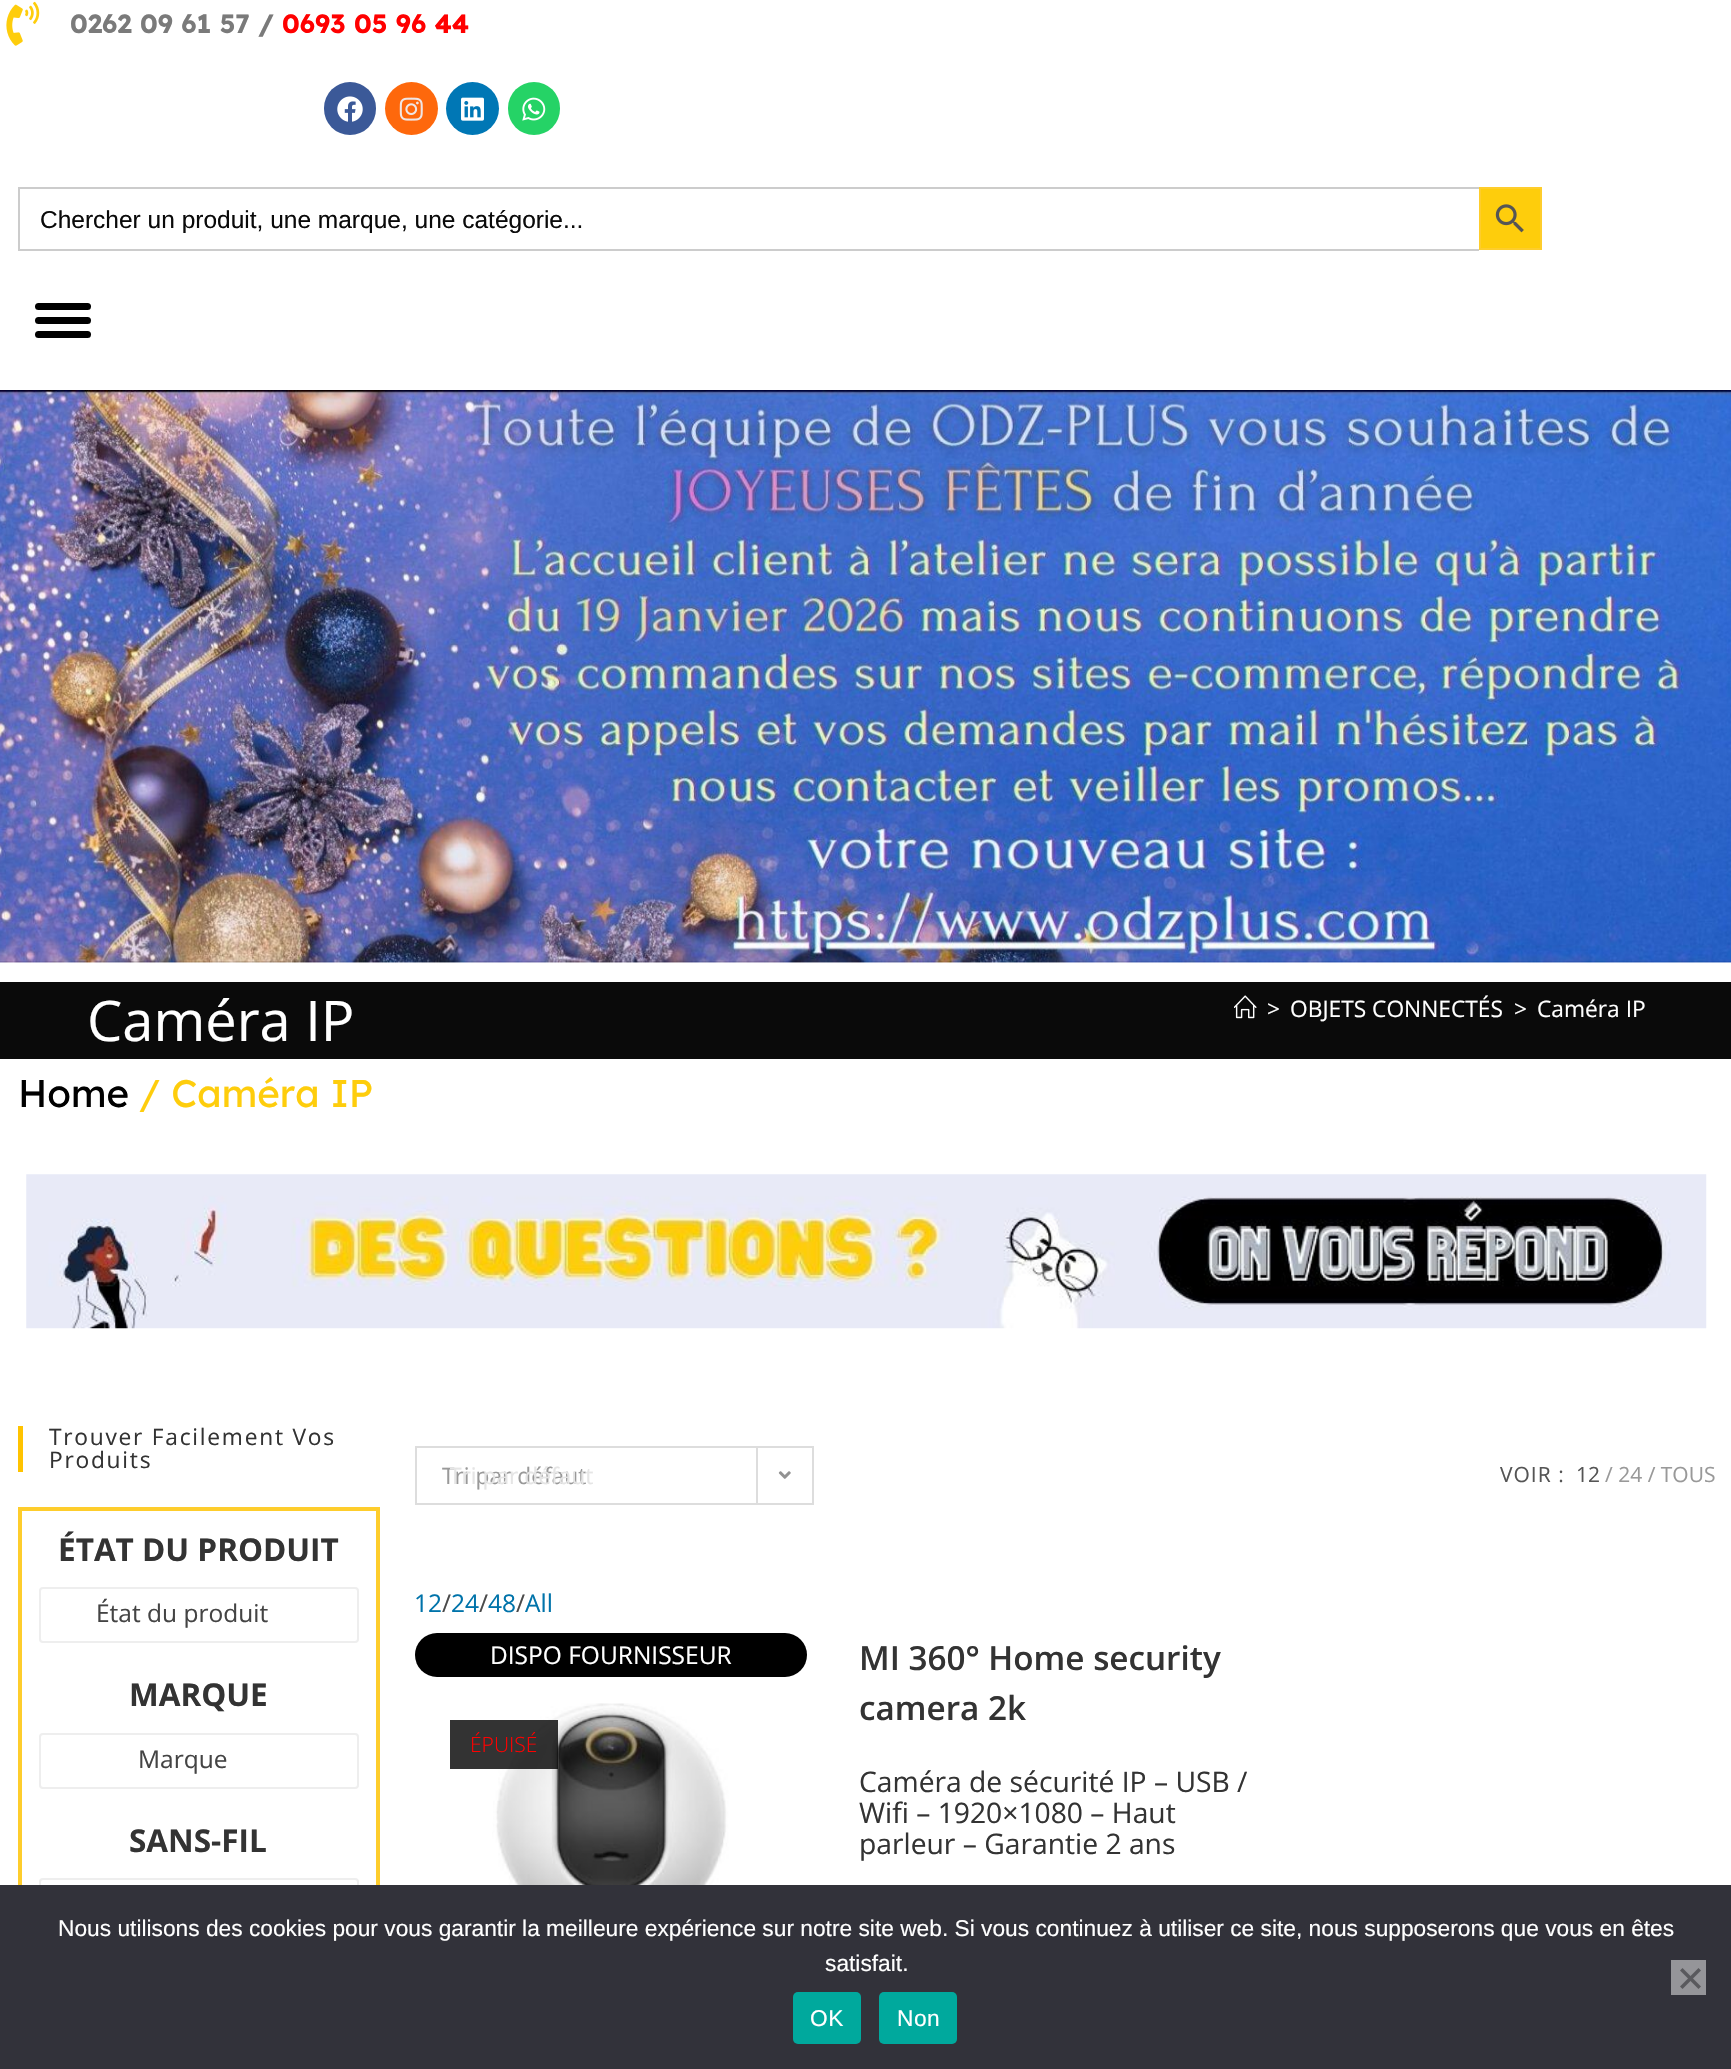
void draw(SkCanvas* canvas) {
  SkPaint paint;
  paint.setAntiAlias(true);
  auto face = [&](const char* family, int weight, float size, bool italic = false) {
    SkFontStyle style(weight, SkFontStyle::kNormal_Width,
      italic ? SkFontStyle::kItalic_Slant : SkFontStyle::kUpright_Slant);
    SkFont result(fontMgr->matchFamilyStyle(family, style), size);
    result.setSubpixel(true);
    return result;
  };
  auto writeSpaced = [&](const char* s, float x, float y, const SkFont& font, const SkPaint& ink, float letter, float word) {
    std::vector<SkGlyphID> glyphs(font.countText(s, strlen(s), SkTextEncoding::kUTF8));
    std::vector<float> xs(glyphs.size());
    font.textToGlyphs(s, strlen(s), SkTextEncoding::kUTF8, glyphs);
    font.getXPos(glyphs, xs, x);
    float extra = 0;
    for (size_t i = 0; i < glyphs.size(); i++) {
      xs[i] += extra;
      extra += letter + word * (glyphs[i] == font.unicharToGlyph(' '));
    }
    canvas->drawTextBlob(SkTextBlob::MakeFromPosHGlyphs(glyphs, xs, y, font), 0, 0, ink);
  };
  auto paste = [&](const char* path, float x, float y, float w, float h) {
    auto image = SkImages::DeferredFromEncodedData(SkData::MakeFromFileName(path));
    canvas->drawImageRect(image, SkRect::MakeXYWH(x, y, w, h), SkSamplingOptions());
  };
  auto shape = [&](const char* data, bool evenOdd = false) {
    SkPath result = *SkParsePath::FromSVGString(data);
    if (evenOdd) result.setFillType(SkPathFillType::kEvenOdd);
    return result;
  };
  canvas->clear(0xffffffff);
  paste("img/1.png", 6, 1, 34, 45);
  paint.setColor(0xff3b5998);
  canvas->drawRoundRect(SkRect::MakeXYWH(324, 82, 52, 53), 26, 26, paint);
  paste("img/2.png", 337, 96, 26, 26);
  paint.setColor(0xfffe680c);
  canvas->drawCircle(411.5f, 108.5f, 26.5f, paint);
  paste("img/3.png", 399, 97, 24, 24);
  paint.setColor(0xff0077b5);
  canvas->drawCircle(472.5f, 108.5f, 26.5f, paint);
  paste("img/4.png", 461, 97, 23, 24);
  paint.setColor(0xff25d366);
  canvas->drawRoundRect(SkRect::MakeXYWH(508, 82, 52, 53), 26, 26, paint);
  paste("img/5.png", 522, 97, 24, 24);
  {
    const struct { float x, y, w, h; SkColor color; } items[] = {
      {18, 187, 1461, 2, 0xffcccccc},
      {18, 249, 1461, 2, 0xffcccccc},
      {18, 187, 2, 63, 0xffcccccc},
    };
    for (auto [x, y, w, h, color] : items) {
      paint.setColor(color);
      canvas->drawRect(SkRect::MakeXYWH(x, y, w, h), paint);
    }
  }
  paint.setColor(0xfffecd0c);
  canvas->drawRect(SkRect::MakeXYWH(1480, 188, 61, 61), paint);
  paint.setStroke(true);
  paint.setStrokeWidth(2);
  paint.setColor(0xfffecd2c);
  canvas->drawRect(SkRect::MakeXYWH(1480, 188, 61, 61), paint);
  paste("img/6.png", 1495, 204, 29, 29);
  paint.setStroke(false);
  paint.setColor(0xff000000);
  canvas->drawRoundRect(SkRect::MakeXYWH(35, 303, 56, 7), 3.5f, 3.5f, paint);
  canvas->drawRoundRect(SkRect::MakeXYWH(35, 317, 56, 7), 3.5f, 3.5f, paint);
  canvas->drawRoundRect(SkRect::MakeXYWH(35, 331, 56, 7), 3.5f, 3.5f, paint);
  paste("img/7.png", 0, 390, 1731, 573);
  paint.setColor(0xff0a0a0a);
  canvas->drawRect(SkRect::MakeXYWH(0, 982, 1731, 77), paint);
  paste("img/8.png", 1234, 995, 23, 24);
  paste("img/9.png", 26, 1174, 1681, 155);
  paint.setColor(0xffffc300);
  canvas->drawRect(SkRect::MakeXYWH(18, 1426, 5, 46), paint);
  paint.setStroke(true);
  paint.setStrokeWidth(4);
  paint.setColor(0xfffecd2c);
  canvas->drawRect(SkRect::MakeXYWH(20, 1509, 358, 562), paint);
  paint.setStrokeWidth(2);
  paint.setColor(0xffeeeeee);
  canvas->drawRoundRect(SkRect::MakeXYWH(40, 1588, 318, 54), 3, 3, paint);
  canvas->drawRoundRect(SkRect::MakeXYWH(40, 1734, 318, 54), 3, 3, paint);
  canvas->drawRoundRect(SkRect::MakeXYWH(40, 1879, 318, 54), 3, 3, paint);
  paint.setColor(0xffdddddd);
  canvas->drawRect(SkRect::MakeXYWH(416, 1447, 397, 57), paint);
  paint.setStroke(false);
  canvas->drawRect(SkRect::MakeXYWH(756, 1447, 2, 56), paint);
  paste("img/10.png", 778, 1471, 13, 8);
  paint.setColor(0xff000000);
  canvas->drawRoundRect(SkRect::MakeXYWH(415, 1633, 392, 44), 22, 22, paint);
  paste("img/11.png", 492, 1703, 239, 182);
  {
    const struct { float x, y, w, h; SkColor color; } items[] = {
      {450, 1720, 108, 49, 0xcc000000},
      {0, 1885, 1731, 184, 0xff32323a},
      {1671, 1960, 35, 35, 0xff959599},
    };
    for (auto [x, y, w, h, color] : items) {
      paint.setColor(color);
      canvas->drawRect(SkRect::MakeXYWH(x, y, w, h), paint);
    }
  }
  paint.setColor(0xff59595d);
  canvas->drawPath(shape("M1698.5 1968L1701 1970.5L1682.5 1989L1680 1986.5Z"), paint);
  canvas->drawPath(shape("M1680 1970.5L1682.5 1968L1701 1986.5L1698.5 1989Z"), paint);
  paint.setColor(0xff00a99d);
  canvas->drawRoundRect(SkRect::MakeXYWH(793, 1992, 68, 52), 5, 5, paint);
  canvas->drawRoundRect(SkRect::MakeXYWH(879, 1992, 78, 52), 5, 5, paint);
  auto f0 = face("Lexend Deca", 700, 26.25f);
  paint.setColor(0xff7a7a7a);
  canvas->drawString("0262 09 61 57 /", 70, 33, f0, paint);
  paint.setColor(0xffff0000);
  canvas->drawString("0693 05 96 44", 282, 33, f0, paint);
  canvas->save();
  canvas->clipRect(SkRect::MakeXYWH(40, 205, 1418, 28));
  auto f1 = face("Liberation Sans", 400, 24.5f);
  paint.setColor(0xff0a0a0a);
  canvas->drawString("Chercher un produit, une marque, une catégorie...", 40, 228, f1, paint);
  canvas->restore();
  auto f2 = face("Open Sans", 400, 56);
  paint.setColor(0xffffffff);
  canvas->drawString("Caméra IP", 87, 1041, f2, paint);
  auto f3 = face("Open Sans", 400, 22.75f);
  {
    const struct { const char* s; float x, y; } items[] = {
      {">", 1267, 1017},
      {"OBJETS CONNECTÉS", 1290, 1017},
      {">", 1514, 1017},
      {"Caméra IP", 1537, 1017},
    };
    for (auto [s, x, y] : items) {
      canvas->drawString(s, x, y, f3, paint);
    }
  }
  auto f4 = face("Lexend Deca", 400, 38.5f);
  paint.setColor(0xff000000);
  canvas->drawString("Home", 18, 1107, f4, paint);
  paint.setColor(0xfffecd0c);
  canvas->drawString("/ Caméra IP", 139, 1107, f4, paint);
  paint.setColor(0xff333333);
  writeSpaced("Trouver Facilement Vos", 49, 1445, f3, paint, 1.75f, 0);
  writeSpaced("Produits", 49, 1468, f3, paint, 1.75f, 0);
  auto f5 = face("Open Sans", 700, 31.5f);
  canvas->drawString("ÉTAT DU PRODUIT", 58, 1561, f5, paint);
  auto f6 = face("Open Sans", 400, 24.5f);
  paint.setColor(0xff444444);
  canvas->drawString("État du produit", 96, 1622, f6, paint);
  paint.setColor(0xff333333);
  canvas->drawString("MARQUE", 129, 1706, f5, paint);
  paint.setColor(0xff444444);
  canvas->drawString("Marque", 138, 1768, f6, paint);
  paint.setColor(0xff333333);
  canvas->drawString("SANS-FIL", 129, 1852, f5, paint);
  paint.setColor(0xff999999);
  canvas->drawString("Tri par défaut", 442, 1484, f3, paint);
  canvas->save();
  canvas->clipRect(SkRect::MakeXYWH(450, 1458, 308, 35));
  paint.setColor(0xffe5e5e5);
  canvas->drawString("Tri par défaut", 449, 1484, f3, paint);
  canvas->restore();
  auto f7 = face("Open Sans", 400, 21);
  paint.setColor(0xff555555);
  writeSpaced("VOIR :", 1500, 1482, f7, paint, 1, 0);
  canvas->drawString("12", 1576, 1482, f7, paint);
  paint.setColor(0xff999999);
  canvas->drawString("/ 24 / TOUS", 1605, 1482, f7, paint);
  paint.setColor(0xff0073aa);
  canvas->drawString("12", 414, 1612, f6, paint);
  paint.setColor(0xff4a4a4a);
  canvas->drawString("/", 442, 1612, f6, paint);
  paint.setColor(0xff0073aa);
  canvas->drawString("24", 451, 1612, f6, paint);
  paint.setColor(0xff4a4a4a);
  canvas->drawString("/", 479, 1612, f6, paint);
  paint.setColor(0xff0073aa);
  canvas->drawString("48", 488, 1612, f6, paint);
  paint.setColor(0xff4a4a4a);
  canvas->drawString("/", 516, 1612, f6, paint);
  paint.setColor(0xff0073aa);
  canvas->drawString("All", 525, 1612, f6, paint);
  paint.setColor(0xffffffff);
  canvas->drawString("DISPO FOURNISSEUR", 490, 1664, f6, paint);
  auto f8 = face("Open Sans", 300, 21);
  paint.setColor(0xffff0000);
  canvas->drawString("ÉPUISÉ", 470, 1752, f8, paint);
  auto f9 = face("Open Sans", 600, 33.25f);
  paint.setColor(0xff333333);
  canvas->drawString("MI 360° Home security", 859, 1670, f9, paint);
  canvas->drawString("camera 2k", 859, 1720, f9, paint);
  auto f10 = face("Open Sans", 400, 28.25f);
  {
    const struct { const char* s; float x, y; } items[] = {
      {"Caméra de sécurité IP – USB /", 859, 1792},
      {"Wifi – 1920×1080 – Haut", 859, 1823},
      {"parleur – Garantie 2 ans", 859, 1854},
    };
    for (auto [s, x, y] : items) {
      canvas->drawString(s, x, y, f10, paint);
    }
  }
  auto f11 = face("Liberation Sans", 400, 22.75f);
  paint.setColor(0xffffffff);
  canvas->drawString("Nous utilisons des cookies pour vous garantir la meilleure expérience sur notre site web. Si vous continuez à utiliser ce site, nous supposerons que vous en êtes", 58, 1936, f11, paint);
  canvas->drawString("satisfait.", 825, 1971, f11, paint);
  writeSpaced("OK", 810, 2026, f11, paint, 0.5f, 0);
  writeSpaced("Non", 897, 2026, f11, paint, 0.5f, 0);
}
